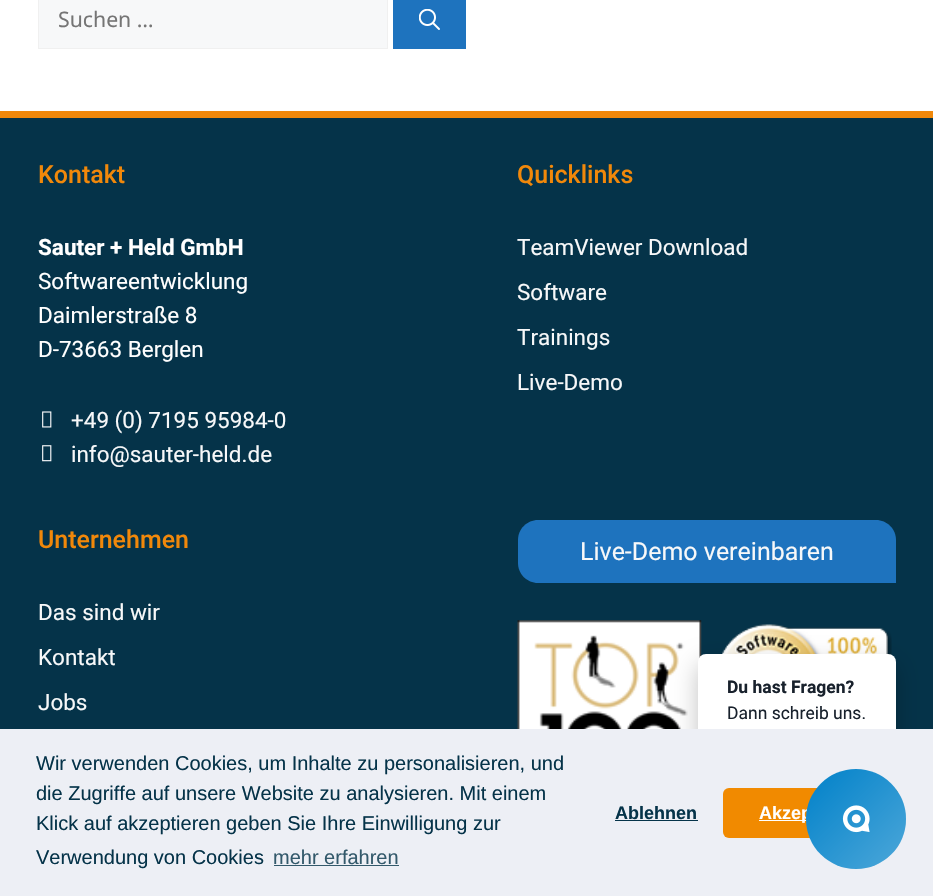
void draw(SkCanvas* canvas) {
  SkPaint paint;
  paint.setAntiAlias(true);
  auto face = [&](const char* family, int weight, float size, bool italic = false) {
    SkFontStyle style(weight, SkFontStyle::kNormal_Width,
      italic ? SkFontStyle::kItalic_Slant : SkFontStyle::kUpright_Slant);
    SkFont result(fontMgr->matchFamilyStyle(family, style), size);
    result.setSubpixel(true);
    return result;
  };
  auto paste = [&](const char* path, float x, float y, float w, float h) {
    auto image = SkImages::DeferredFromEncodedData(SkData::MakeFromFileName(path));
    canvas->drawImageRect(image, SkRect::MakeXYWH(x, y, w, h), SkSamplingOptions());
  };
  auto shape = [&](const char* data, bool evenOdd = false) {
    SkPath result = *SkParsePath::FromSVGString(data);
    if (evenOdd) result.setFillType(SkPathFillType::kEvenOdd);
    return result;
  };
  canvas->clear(0xffffffff);
  paint.setColor(0xfff7f8f9);
  canvas->drawRect(SkRect::MakeXYWH(38.5f, -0.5f, 349, 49), paint);
  paint.setStroke(true);
  paint.setStrokeWidth(1);
  paint.setColor(0xfff0f0f0);
  canvas->drawRect(SkRect::MakeXYWH(38.5f, -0.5f, 349, 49), paint);
  paint.setStroke(false);
  paint.setColor(0xff1e73be);
  canvas->drawRect(SkRect::MakeXYWH(393, 0, 73, 49), paint);
  paste("img/1.png", 419, 9, 21, 21);
  paint.setColor(0xfff1880a);
  canvas->drawRect(SkRect::MakeXYWH(0, 111, 933, 7), paint);
  paint.setColor(0xff053349);
  canvas->drawRect(SkRect::MakeXYWH(0, 118, 933, 611), paint);
  paste("img/2.png", 42, 411, 10, 17);
  paste("img/3.png", 42, 445, 10, 17);
  paint.setColor(0xff1e73be);
  canvas->drawPath(shape("M538 520H876C887 520 896 529 896 540V583H538C527 583 518 574 518 563V540C518 529 527 520 538 520Z"), paint);
  paste("img/4.png", 517, 620, 185, 109);
  paste("img/5.png", 721, 624, 171, 32);
  paint.setColor(0x3d000000);
  paint.setMaskFilter(SkMaskFilter::MakeBlur(kNormal_SkBlurStyle, 12.5f));
  canvas->drawRoundRect(SkRect::MakeXYWH(698, 664, 198, 92), 8, 8, paint);
  paint.setMaskFilter(nullptr);
  paint.setColor(0xffffffff);
  canvas->drawRoundRect(SkRect::MakeXYWH(698, 654, 198, 92), 8, 8, paint);
  {
    const struct { float x, y, w, h; SkColor color; } items[] = {
      {0, 729, 933, 167, 0xffedeff5},
      {274, 865, 125, 1, 0xff33596b},
      {615, 820, 83, 1, 0xff053349},
    };
    for (auto [x, y, w, h, color] : items) {
      paint.setColor(color);
      canvas->drawRect(SkRect::MakeXYWH(x, y, w, h), paint);
    }
  }
  paint.setColor(0xfff18a00);
  canvas->drawRoundRect(SkRect::MakeXYWH(723, 788, 175, 50), 6, 6, paint);
  paint.setColor(0xffffffff);
  canvas->drawRect(SkRect::MakeXYWH(759, 820, 48, 1), paint);
  auto f0 = face("Noto Sans", 400, 21.25f);
  paint.setColor(0xff757575);
  canvas->drawString("Suchen …", 58, 27, f0, paint);
  auto f1 = face("Roboto", 500, 25);
  paint.setColor(0xfff1880a);
  canvas->drawString("Kontakt", 38, 183, f1, paint);
  auto f2 = face("Roboto", 700, 22.5f);
  paint.setColor(0xffffffff);
  canvas->drawString("Sauter + Held GmbH", 38, 255, f2, paint);
  auto f3 = face("Roboto", 400, 22.5f);
  {
    const struct { const char* s; float x, y; } items[] = {
      {"Softwareentwicklung", 38, 289},
      {"Daimlerstraße 8", 38, 323},
      {"D-73663 Berglen", 38, 357},
    };
    for (auto [s, x, y] : items) {
      canvas->drawString(s, x, y, f3, paint);
    }
  }
  paint.setColor(0xfff7f8f9);
  canvas->drawString("+49 (0) 7195 95984-0", 71, 428, f3, paint);
  canvas->drawString("info@sauter-held.de", 71, 462, f3, paint);
  paint.setColor(0xfff1880a);
  canvas->drawString("Quicklinks", 517, 183, f1, paint);
  paint.setColor(0xfff7f8f9);
  {
    const struct { const char* s; float x, y; } items[] = {
      {"TeamViewer Download", 517, 255},
      {"Software", 517, 300},
      {"Trainings", 517, 345},
      {"Live-Demo", 517, 390},
    };
    for (auto [s, x, y] : items) {
      canvas->drawString(s, x, y, f3, paint);
    }
  }
  paint.setColor(0xfff1880a);
  canvas->drawString("Unternehmen", 38, 548, f1, paint);
  paint.setColor(0xfff7f8f9);
  {
    const struct { const char* s; float x, y; } items[] = {
      {"Das sind wir", 38, 620},
      {"Kontakt", 38, 665},
      {"Jobs", 38, 710},
    };
    for (auto [s, x, y] : items) {
      canvas->drawString(s, x, y, f3, paint);
    }
  }
  auto f4 = face("Roboto", 400, 25);
  canvas->drawString("Live-Demo vereinbaren", 580, 560, f4, paint);
  auto f5 = face("Roboto", 700, 17.5f);
  paint.setColor(0xff18212c);
  canvas->drawString("Du hast Fragen?", 727, 693, f5, paint);
  auto f6 = face("Roboto", 400, 17.5f);
  canvas->drawString("Dann schreib uns.", 727, 719, f6, paint);
  auto f7 = face("Liberation Sans", 400, 20);
  paint.setColor(0xff053349);
  {
    const struct { const char* s; float x, y; } items[] = {
      {"Wir verwenden Cookies, um Inhalte zu personalisieren, und", 36, 770},
      {"die Zugriffe auf unsere Website zu analysieren. Mit einem", 36, 800},
      {"Klick auf akzeptieren geben Sie Ihre Einwilligung zur", 36, 830},
      {"Verwendung von Cookies", 36, 864},
    };
    for (auto [s, x, y] : items) {
      canvas->drawString(s, x, y, f7, paint);
    }
  }
  paint.setColor(0xff33596b);
  canvas->drawString("mehr erfahren", 273, 864, f7, paint);
  auto f8 = face("Liberation Sans", 700, 18);
  paint.setColor(0xff053349);
  canvas->drawString("Ablehnen", 615, 819, f8, paint);
  paint.setColor(0xffffffff);
  canvas->drawString("Akzep", 759, 819, f8, paint);
  paint.setColor(0xff0081c9);
  canvas->drawCircle(856, 819, 50, paint);
  {
    const SkColor colors[] = {0x4dffffff, 0x00ffffff};
    const float stops[] = {0, 1};
    const SkPoint ends[] = {{906, 869}, {806, 769}};
    paint.setShader(SkGradientShader::MakeLinear(ends, colors, stops, 2, SkTileMode::kClamp));
    paint.setAlpha(255);
  }
  canvas->drawCircle(856, 819, 50, paint);
  paste("img/6.png", 842, 805, 28, 28);
}
